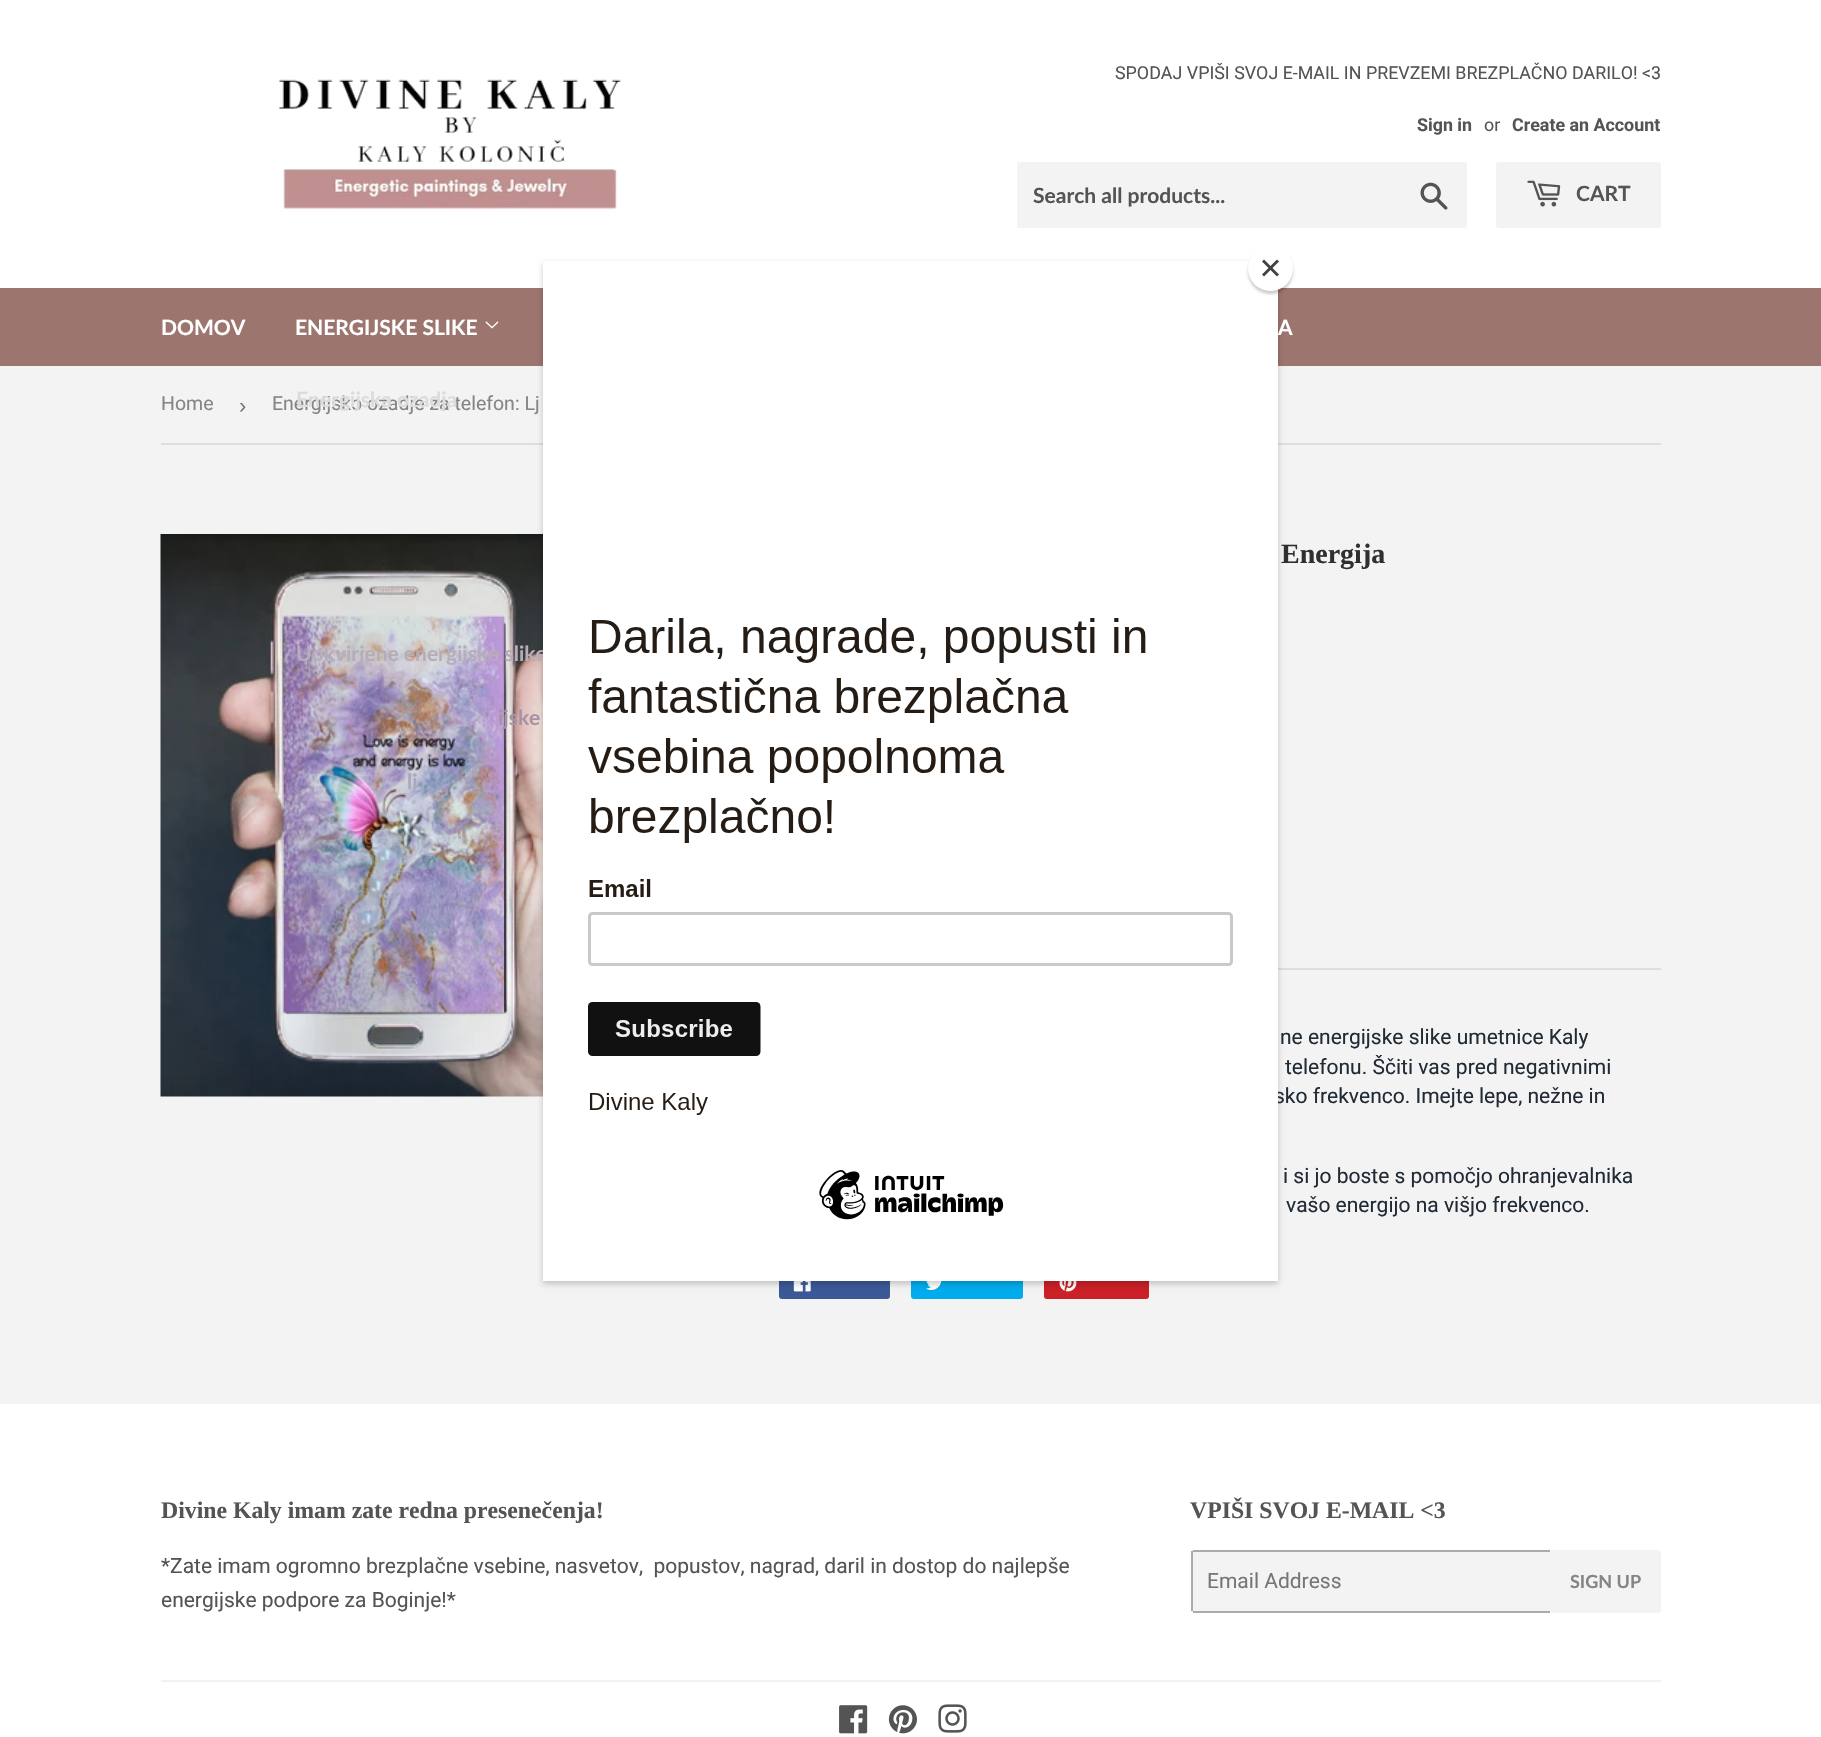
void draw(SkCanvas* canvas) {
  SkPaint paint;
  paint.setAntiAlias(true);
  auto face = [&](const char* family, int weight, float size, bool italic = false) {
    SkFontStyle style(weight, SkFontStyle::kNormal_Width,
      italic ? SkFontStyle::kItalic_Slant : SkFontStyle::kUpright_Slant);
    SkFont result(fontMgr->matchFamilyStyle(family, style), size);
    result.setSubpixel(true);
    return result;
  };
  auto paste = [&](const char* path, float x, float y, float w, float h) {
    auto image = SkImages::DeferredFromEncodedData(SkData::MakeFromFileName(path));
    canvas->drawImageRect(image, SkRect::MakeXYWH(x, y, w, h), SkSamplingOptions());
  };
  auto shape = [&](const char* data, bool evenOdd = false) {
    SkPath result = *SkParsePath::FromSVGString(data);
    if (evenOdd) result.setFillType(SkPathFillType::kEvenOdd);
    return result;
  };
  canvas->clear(0xfff3f3f3);
  paint.setColor(0xffffffff);
  canvas->drawRect(SkRect::MakeXYWH(0, 0, 1821, 288), paint);
  paste("img/1.png", 279, 79, 342, 131);
  paint.setColor(0xfff3f3f3);
  canvas->drawRoundRect(SkRect::MakeXYWH(1017, 162, 450, 66), 3, 3, paint);
  paste("img/2.png", 1420, 182, 28, 28);
  canvas->drawRoundRect(SkRect::MakeXYWH(1496, 162, 165, 66), 3, 3, paint);
  paste("img/3.png", 1527, 180, 34, 27);
  paint.setColor(0xff9c756f);
  canvas->drawRect(SkRect::MakeXYWH(0, 288, 1821, 78), paint);
  paste("img/4.png", 485, 321, 14, 8);
  paint.setColor(0xffdedede);
  canvas->drawRect(SkRect::MakeXYWH(161, 443, 1500, 2), paint);
  paste("img/6.png", 160, 534, 383, 563);
  canvas->drawRect(SkRect::MakeXYWH(1278, 968, 383, 2), paint);
  paint.setColor(0xff3b5998);
  canvas->drawRoundRect(SkRect::MakeXYWH(779, 1266, 111, 33), 3, 3, paint);
  paste("img/7.png", 793, 1281, 18, 11);
  paint.setColor(0xff00aced);
  canvas->drawRoundRect(SkRect::MakeXYWH(911, 1266, 112, 33), 3, 3, paint);
  paste("img/8.png", 926, 1281, 16, 9);
  paint.setColor(0xffcb2027);
  canvas->drawRoundRect(SkRect::MakeXYWH(1044, 1266, 105, 33), 3, 3, paint);
  paste("img/9.png", 1059, 1281, 18, 11);
  canvas->save();
  canvas->clipPath(shape("M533 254H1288V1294H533ZM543 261H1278V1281H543Z", true), true);
  paint.setColor(0x33000000);
  paint.setMaskFilter(SkMaskFilter::MakeBlur(kNormal_SkBlurStyle, 3));
  canvas->drawRect(SkRect::MakeXYWH(543, 264, 735, 1020), paint);
  paint.setMaskFilter(nullptr);
  canvas->restore();
  paint.setColor(0xffffffff);
  canvas->drawRect(SkRect::MakeXYWH(0, 1404, 1821, 333), paint);
  paint.setColor(0xfff3f3f3);
  canvas->drawRoundRect(SkRect::MakeXYWH(1191, 1550, 360, 63), 3, 3, paint);
  {
    const struct { float x, y, w, h; SkColor color; } items[] = {
      {1193, 1550, 357, 2, 0xffababab},
      {1193, 1611, 357, 2, 0xffababab},
      {1191, 1551, 2, 60, 0xffababab},
    };
    for (auto [x, y, w, h, color] : items) {
      paint.setColor(color);
      canvas->drawRect(SkRect::MakeXYWH(x, y, w, h), paint);
    }
  }
  paint.setColor(0xfff3f3f3);
  canvas->drawPath(shape("M1551 1550H1658C1659.5 1550 1661 1551.5 1661 1553V1610C1661 1611.5 1659.5 1613 1658 1613H1551Z"), paint);
  paint.setColor(0xfff2f2f2);
  canvas->drawRect(SkRect::MakeXYWH(161, 1680, 1500, 2), paint);
  paste("img/10.png", 839, 1705, 29, 29);
  paste("img/11.png", 888, 1705, 29, 29);
  paste("img/12.png", 938, 1704, 29, 29);
  auto f0 = face("Roboto", 400, 17.85f);
  paint.setColor(0xff545454);
  canvas->drawString("SPODAJ VPIŠI SVOJ E-MAIL IN PREVZEMI BREZPLAČNO DARILO! <3", 1115, 79, f0, paint);
  auto f1 = face("Roboto", 700, 17.85f);
  canvas->drawString("Sign in", 1417, 131, f1, paint);
  canvas->drawString("or", 1484, 131, f0, paint);
  canvas->drawString("Create an Account", 1512, 131, f1, paint);
  auto f2 = face("Lato", 700, 21);
  canvas->drawString("Search all products...", 1033, 203, f2, paint);
  canvas->drawString("CART", 1576, 201, f2, paint);
  paint.setColor(0xffffffff);
  canvas->drawString("DOMOV", 161, 335, f2, paint);
  canvas->drawString("ENERGIJSKE SLIKE", 295, 335, f2, paint);
  paint.setColor(0xffb6adb8);
  canvas->drawString("Uokvirjene energijske slike", 296, 661, f2, paint);
  paint.setColor(0xffa793a4);
  canvas->drawString("ijske", 498, 725, f2, paint);
  paint.setColor(0xffaba7bc);
  canvas->drawString("li", 407, 789, f2, paint);
  paint.setColor(0xffffffff);
  canvas->drawString("A", 1278, 335, f2, paint);
  auto f3 = face("Roboto", 400, 19.5f);
  paint.setColor(0xff858585);
  canvas->drawString("Home", 161, 410, f3, paint);
  auto f4 = face("Liberation Sans", 400, 22);
  paint.setColor(0xff767676);
  canvas->drawString("›", 239, 413, f4, paint);
  paint.setColor(0xff858585);
  canvas->drawString("Energijsko ozadje za telefon: Lj", 272, 410, f3, paint);
  paint.setColor(0xffdcdcdc);
  canvas->drawString("Energijska ozadja", 296, 407, f2, paint);
  auto f5 = face("Liberation Serif", 700, 28);
  paint.setColor(0xff2f2f2f);
  canvas->drawString("Energija", 1281, 563, f5, paint);
  auto f6 = face("Roboto", 400, 21);
  paint.setColor(0xff212b36);
  {
    const struct { const char* s; float x, y; } items[] = {
      {"ne energijske slike umetnice Kaly", 1280, 1044},
      {"telefonu. Ščiti vas pred negativnimi", 1285, 1074},
      {"sko frekvenco. Imejte lepe, nežne in", 1274, 1103},
    };
    for (auto [s, x, y] : items) {
      canvas->drawString(s, x, y, f6, paint);
    }
  }
  paste("img/5.png", 543, 288, 735, 993);
  paint.setColor(0x33000000);
  paint.setMaskFilter(SkMaskFilter::MakeBlur(kNormal_SkBlurStyle, 1.5f));
  canvas->drawRoundRect(SkRect::MakeXYWH(1248, 249, 45, 45), 22.5f, 22.5f, paint);
  paint.setMaskFilter(nullptr);
  paint.setColor(0xffffffff);
  canvas->drawCircle(1270.5f, 268.5f, 22.5f, paint);
  paint.setColor(0xff414141);
  canvas->drawPath(shape("M1277 259.5L1279 261.5L1264 276.5L1262 274.5Z"), paint);
  canvas->drawPath(shape("M1262 261.5L1264 259.5L1279 274.5L1277 276.5Z"), paint);
  paint.setColor(0xff212b36);
  canvas->drawString("i si jo boste s pomočjo ohranjevalnika", 1283, 1183, f6, paint);
  canvas->drawString("vašo energijo na višjo frekvenco.", 1286, 1212, f6, paint);
  auto f7 = face("Liberation Serif", 700, 23.75f);
  paint.setColor(0xff545454);
  canvas->drawString("Divine Kaly imam zate redna presenečenja!", 161, 1518, f7, paint);
  canvas->drawString("*Zate imam ogromno brezplačne vsebine, nasvetov,  popustov, nagrad, daril in dostop do najlepše", 161, 1573, f6, paint);
  canvas->drawString("energijske podpore za Boginje!*", 161, 1607, f6, paint);
  canvas->drawString("VPIŠI SVOJ E-MAIL <3", 1190, 1518, f7, paint);
  paint.setColor(0xff767676);
  canvas->drawString("Email Address", 1207, 1588, f6, paint);
  auto f8 = face("Lato", 700, 18);
  paint.setColor(0xff858585);
  canvas->drawString("SIGN UP", 1570, 1588, f8, paint);
}
